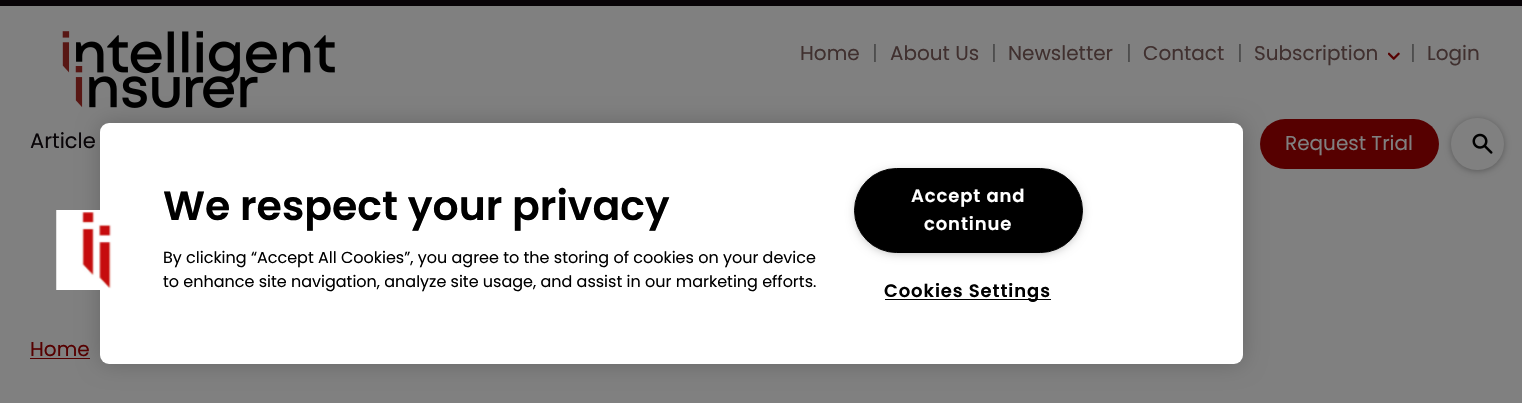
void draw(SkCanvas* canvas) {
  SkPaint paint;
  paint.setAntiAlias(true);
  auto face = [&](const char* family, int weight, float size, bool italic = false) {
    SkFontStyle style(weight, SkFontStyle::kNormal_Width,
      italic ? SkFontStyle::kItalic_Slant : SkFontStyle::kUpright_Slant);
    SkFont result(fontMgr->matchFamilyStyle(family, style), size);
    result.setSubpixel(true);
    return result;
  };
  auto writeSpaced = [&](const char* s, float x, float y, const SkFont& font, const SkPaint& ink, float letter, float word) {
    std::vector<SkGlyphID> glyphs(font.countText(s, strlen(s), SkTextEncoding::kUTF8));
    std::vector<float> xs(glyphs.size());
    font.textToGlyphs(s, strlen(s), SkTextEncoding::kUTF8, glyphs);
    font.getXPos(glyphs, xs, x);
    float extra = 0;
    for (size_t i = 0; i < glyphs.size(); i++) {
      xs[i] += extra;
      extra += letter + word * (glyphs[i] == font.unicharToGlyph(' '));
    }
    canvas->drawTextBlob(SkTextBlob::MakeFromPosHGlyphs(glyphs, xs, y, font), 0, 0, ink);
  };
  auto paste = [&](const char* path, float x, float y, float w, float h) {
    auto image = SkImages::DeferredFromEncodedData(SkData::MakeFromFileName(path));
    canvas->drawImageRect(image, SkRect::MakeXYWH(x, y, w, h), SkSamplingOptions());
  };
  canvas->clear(0xff808080);
  paint.setColor(0xff080407);
  canvas->drawRect(SkRect::MakeXYWH(0, 0, 1522, 6), paint);
  paste("img/1.png", 62, 31, 273, 77);
  paste("img/2.png", 1388, 52, 12, 8);
  paint.setColor(0xff560000);
  canvas->drawRoundRect(SkRect::MakeXYWH(1260, 119, 179, 50), 25, 25, paint);
  paint.setColor(0x4d000000);
  paint.setMaskFilter(SkMaskFilter::MakeBlur(kNormal_SkBlurStyle, 3));
  canvas->drawRoundRect(SkRect::MakeXYWH(1451, 119, 53, 52), 26, 26, paint);
  paint.setMaskFilter(nullptr);
  paint.setColor(0xff808080);
  canvas->drawRoundRect(SkRect::MakeXYWH(1451, 118, 53, 52), 26, 26, paint);
  paste("img/3.png", 1472, 133, 21, 21);
  paint.setColor(0xff560000);
  canvas->drawRect(SkRect::MakeXYWH(30, 358, 60, 1), paint);
  paint.setColor(0x33000000);
  paint.setMaskFilter(SkMaskFilter::MakeBlur(kNormal_SkBlurStyle, 11));
  canvas->drawRoundRect(SkRect::MakeXYWH(100, 123, 1143, 241), 9, 9, paint);
  paint.setMaskFilter(nullptr);
  paint.setColor(0xffffffff);
  canvas->drawRoundRect(SkRect::MakeXYWH(100, 123, 1143, 241), 9, 9, paint);
  paste("img/4.png", 56, 210, 56, 80);
  paint.setColor(0xff999999);
  paint.setMaskFilter(SkMaskFilter::MakeBlur(kNormal_SkBlurStyle, 6));
  canvas->drawRoundRect(SkRect::MakeXYWH(858, 174, 221, 77), 38.5f, 38.5f, paint);
  paint.setMaskFilter(nullptr);
  paint.setColor(0xff000000);
  canvas->drawRoundRect(SkRect::MakeXYWH(854.5f, 168.5f, 228, 84), 42, 42, paint);
  paint.setStroke(true);
  paint.setStrokeWidth(1);
  canvas->drawRoundRect(SkRect::MakeXYWH(854.5f, 168.5f, 228, 84), 42, 42, paint);
  paint.setStroke(false);
  canvas->drawRect(SkRect::MakeXYWH(885, 299, 166, 1), paint);
  auto f0 = face("Poppins", 400, 21);
  paint.setColor(0xff080407);
  canvas->drawString("Article", 30, 148, f0, paint);
  auto f1 = face("Poppins", 400, 20);
  paint.setColor(0xff40302f);
  canvas->drawString("Home", 800, 60, f1, paint);
  paint.setColor(0xff4e4e4e);
  canvas->drawString("|", 872, 60, f1, paint);
  paint.setColor(0xff40302f);
  canvas->drawString("About Us", 890, 60, f1, paint);
  paint.setColor(0xff4e4e4e);
  canvas->drawString("|", 991, 60, f1, paint);
  paint.setColor(0xff40302f);
  canvas->drawString("Newsletter", 1008, 60, f1, paint);
  paint.setColor(0xff4e4e4e);
  canvas->drawString("|", 1126, 60, f1, paint);
  paint.setColor(0xff40302f);
  canvas->drawString("Contact", 1143, 60, f1, paint);
  paint.setColor(0xff4e4e4e);
  canvas->drawString("|", 1237, 60, f1, paint);
  paint.setColor(0xff40302f);
  canvas->drawString("Subscription", 1254, 60, f1, paint);
  paint.setColor(0xff4e4e4e);
  canvas->drawString("|", 1410, 60, f1, paint);
  paint.setColor(0xff40302f);
  canvas->drawString("Login", 1427, 60, f1, paint);
  paint.setColor(0xff808080);
  canvas->drawString("Request Trial", 1285, 150, f1, paint);
  paint.setColor(0xff560000);
  canvas->drawString("Home", 30, 356, f1, paint);
  auto f2 = face("Poppins", 600, 41);
  paint.setColor(0xff000000);
  canvas->drawString("We respect your privacy", 163, 220, f2, paint);
  auto f3 = face("Poppins", 400, 16);
  canvas->drawString("By clicking “Accept All Cookies”, you agree to the storing of cookies on your device", 163, 263, f3, paint);
  canvas->drawString("to enhance site navigation, analyze site usage, and assist in our marketing efforts.", 163, 287, f3, paint);
  auto f4 = face("Poppins", 600, 18);
  paint.setColor(0xffffffff);
  writeSpaced("Accept and", 911, 202, f4, paint, 0.9f, 0);
  writeSpaced("continue", 924, 230, f4, paint, 0.9f, 0);
  paint.setColor(0xff000000);
  writeSpaced("Cookies Settings", 884, 297, f4, paint, 0.9f, 0);
}
